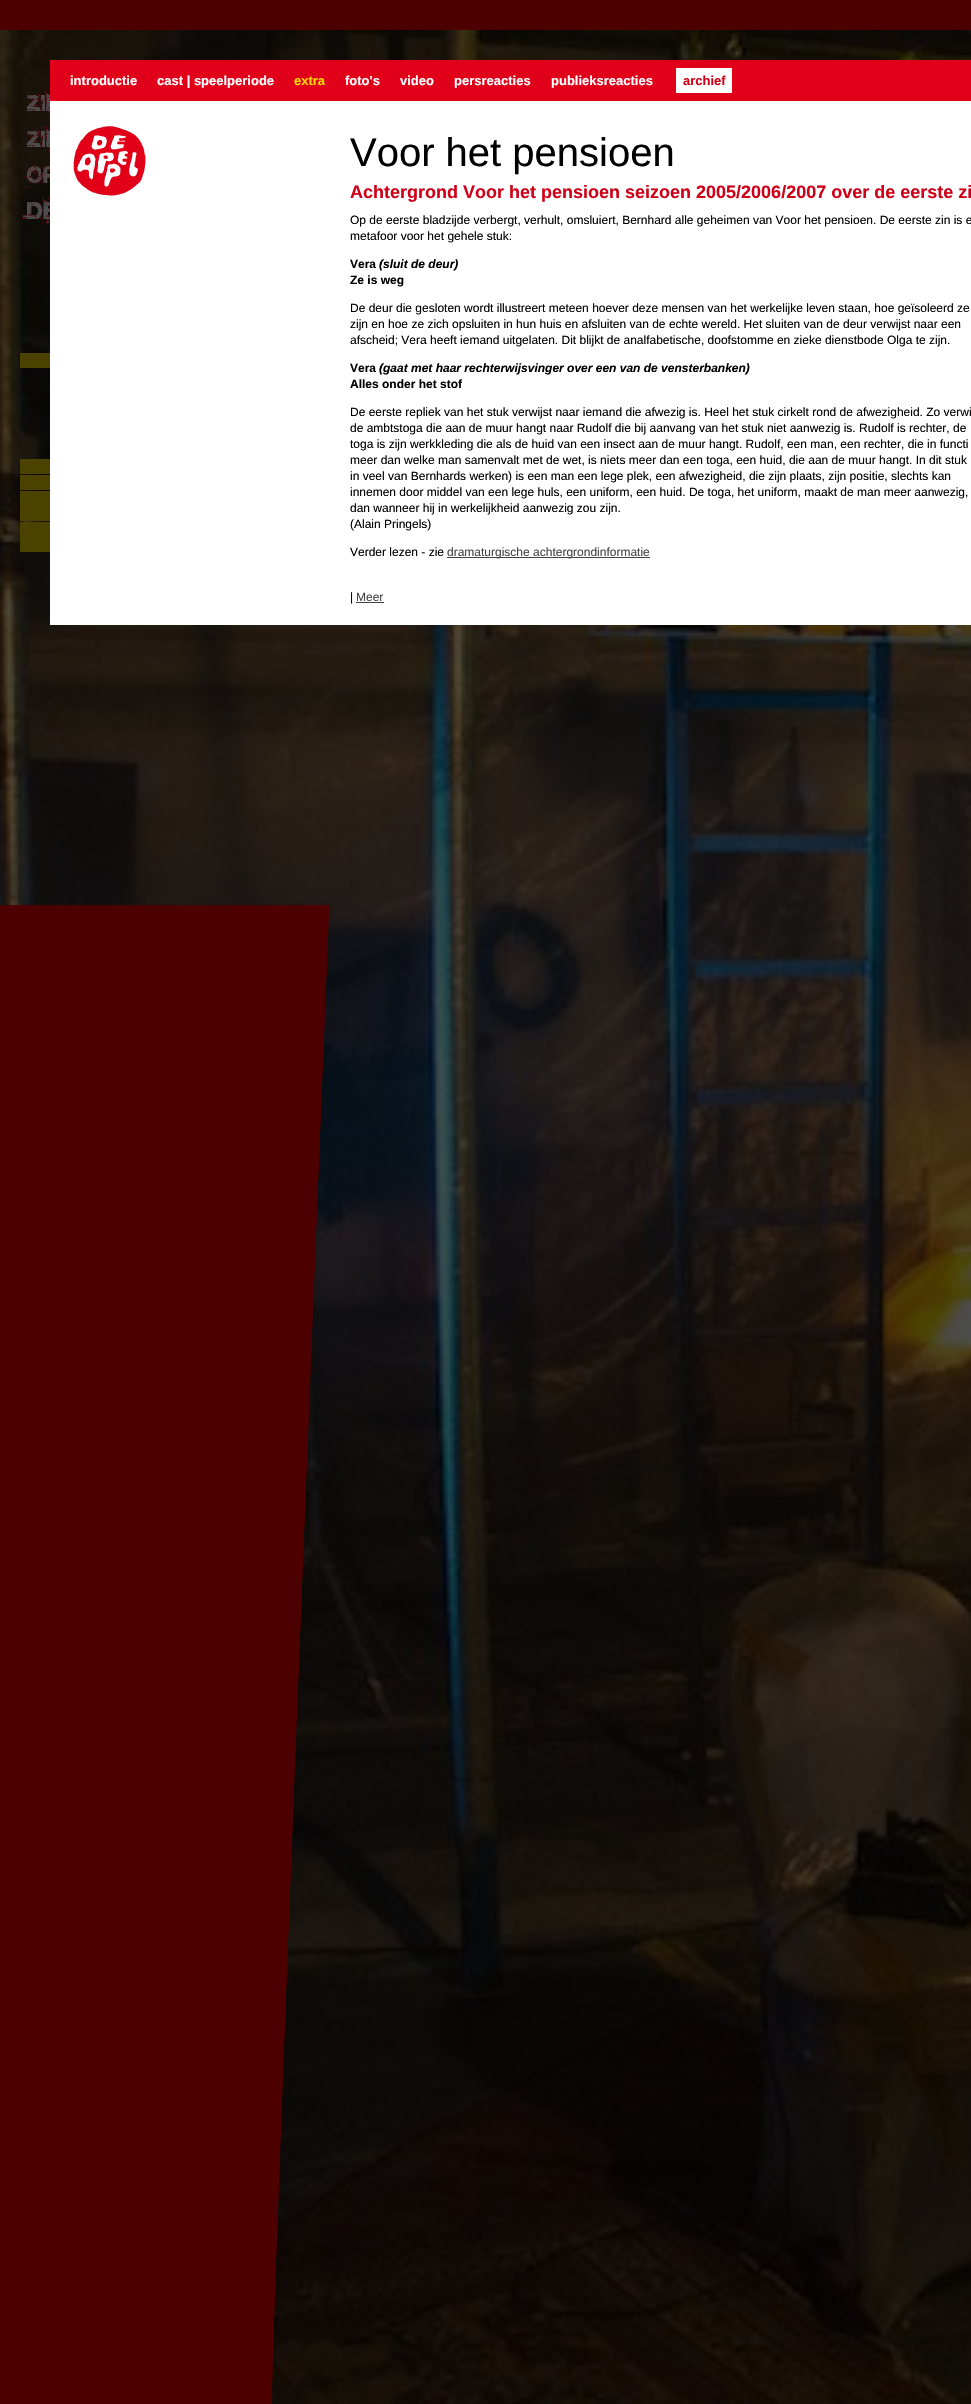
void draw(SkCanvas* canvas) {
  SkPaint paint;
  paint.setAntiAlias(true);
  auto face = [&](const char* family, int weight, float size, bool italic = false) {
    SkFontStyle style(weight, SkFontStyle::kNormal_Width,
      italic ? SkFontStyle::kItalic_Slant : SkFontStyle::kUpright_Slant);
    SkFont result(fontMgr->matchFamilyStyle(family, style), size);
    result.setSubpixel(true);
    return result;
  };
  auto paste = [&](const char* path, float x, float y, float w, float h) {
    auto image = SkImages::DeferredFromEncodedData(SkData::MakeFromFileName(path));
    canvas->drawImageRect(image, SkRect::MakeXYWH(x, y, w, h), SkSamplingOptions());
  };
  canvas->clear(0xff4c0000);
  paste("img/1.png", 0, 30, 971, 2374);
  {
    const struct { float x, y, w, h; SkColor color; } items[] = {
      {50, 60, 921, 41, 0xffe10019},
      {676, 68, 56, 25, 0xffffffff},
      {50, 101, 921, 524, 0xffffffff},
    };
    for (auto [x, y, w, h, color] : items) {
      paint.setColor(color);
      canvas->drawRect(SkRect::MakeXYWH(x, y, w, h), paint);
    }
  }
  paste("img/2.png", 73, 126, 73, 70);
  paint.setColor(0xff444444);
  canvas->drawRect(SkRect::MakeXYWH(447, 557, 203, 1), paint);
  canvas->drawRect(SkRect::MakeXYWH(356, 602, 28, 1), paint);
  paste("img/3.png", 0, 905, 330, 1499);
  paste("img/4.png", 27, 90, 23, 26);
  paste("img/5.png", 27, 126, 23, 26);
  paste("img/6.png", 24, 166, 26, 22);
  paste("img/7.png", 22, 197, 28, 27);
  {
    const struct { float x, y, w, h; SkColor color; } items[] = {
      {20, 353, 30, 15, 0xff4c4200},
      {20, 459, 30, 15, 0xff4c4200},
      {20, 475, 30, 15, 0xff4c4200},
      {20, 491, 30, 30, 0xff4c4200},
      {20, 522, 30, 30, 0xff4c4200},
    };
    for (auto [x, y, w, h, color] : items) {
      paint.setColor(color);
      canvas->drawRect(SkRect::MakeXYWH(x, y, w, h), paint);
    }
  }
  auto f0 = face("Liberation Sans", 700, 13);
  paint.setColor(0xffffffff);
  canvas->drawString("introductie", 70, 85, f0, paint);
  canvas->drawString("cast | speelperiode", 157, 85, f0, paint);
  paint.setColor(0xfffcdb00);
  canvas->drawString("extra", 294, 85, f0, paint);
  paint.setColor(0xffffffff);
  {
    const struct { const char* s; float x, y; } items[] = {
      {"foto's", 345, 85},
      {"video", 400, 85},
      {"persreacties", 454, 85},
      {"publieksreacties", 551, 85},
    };
    for (auto [s, x, y] : items) {
      canvas->drawString(s, x, y, f0, paint);
    }
  }
  paint.setColor(0xffcf0017);
  canvas->drawString("archief", 683, 85, f0, paint);
  auto f1 = face("Liberation Sans", 400, 40);
  paint.setColor(0xff000000);
  canvas->drawString("Voor het pensioen", 350, 166, f1, paint);
  auto f2 = face("Liberation Sans", 700, 18);
  paint.setColor(0xffcf0017);
  canvas->drawString("Achtergrond Voor het pensioen seizoen 2005/2006/2007 over de eerste zi", 350, 198, f2, paint);
  auto f3 = face("Liberation Sans", 400, 12);
  paint.setColor(0xff000000);
  canvas->drawString("Op de eerste bladzijde verbergt, verhult, omsluiert, Bernhard alle geheimen van Voor het pensioen. De eerste zin is e", 350, 224, f3, paint);
  canvas->drawString("metafoor voor het gehele stuk:", 350, 240, f3, paint);
  auto f4 = face("Liberation Sans", 700, 12);
  canvas->drawString("Vera", 350, 268, f4, paint);
  auto f5 = face("Liberation Sans", 700, 12, true);
  canvas->drawString("(sluit de deur)", 379, 268, f5, paint);
  canvas->drawString("Ze is weg", 350, 284, f4, paint);
  {
    const struct { const char* s; float x, y; } items[] = {
      {"De deur die gesloten wordt illustreert meteen hoever deze mensen van het werkelijke leven staan, hoe geïsoleerd ze", 350, 312},
      {"zijn en hoe ze zich opsluiten in hun huis en afsluiten van de echte wereld. Het sluiten van de deur verwijst naar een", 350, 328},
      {"afscheid; Vera heeft iemand uitgelaten. Dit blijkt de analfabetische, doofstomme en zieke dienstbode Olga te zijn.", 350, 344},
    };
    for (auto [s, x, y] : items) {
      canvas->drawString(s, x, y, f3, paint);
    }
  }
  canvas->drawString("Vera", 350, 372, f4, paint);
  canvas->drawString("(gaat met haar rechterwijsvinger over een van de vensterbanken)", 379, 372, f5, paint);
  canvas->drawString("Alles onder het stof", 350, 388, f4, paint);
  {
    const struct { const char* s; float x, y; } items[] = {
      {"De eerste repliek van het stuk verwijst naar iemand die afwezig is. Heel het stuk cirkelt rond de afwezigheid. Zo verwi", 350, 416},
      {"de ambtstoga die aan de muur hangt naar Rudolf die bij aanvang van het stuk niet aanwezig is. Rudolf is rechter, de", 350, 432},
      {"toga is zijn werkkleding die als de huid van een insect aan de muur hangt. Rudolf, een man, een rechter, die in functi", 350, 448},
      {"meer dan welke man samenvalt met de wet, is niets meer dan een toga, een huid, die aan de muur hangt. In dit stuk", 350, 464},
      {"in veel van Bernhards werken) is een man een lege plek, een afwezigheid, die zijn plaats, zijn positie, slechts kan", 350, 480},
      {"innemen door middel van een lege huls, een uniform, een huid. De toga, het uniform, maakt de man meer aanwezig,", 350, 496},
      {"dan wanneer hij in werkelijkheid aanwezig zou zijn.", 350, 512},
      {"(Alain Pringels)", 350, 528},
      {"Verder lezen - zie", 350, 556},
    };
    for (auto [s, x, y] : items) {
      canvas->drawString(s, x, y, f3, paint);
    }
  }
  paint.setColor(0xff444444);
  canvas->drawString("dramaturgische achtergrondinformatie", 447, 556, f3, paint);
  paint.setColor(0xff000000);
  canvas->drawString("|", 350, 601, f3, paint);
  paint.setColor(0xff444444);
  canvas->drawString("Meer", 356, 601, f3, paint);
}
